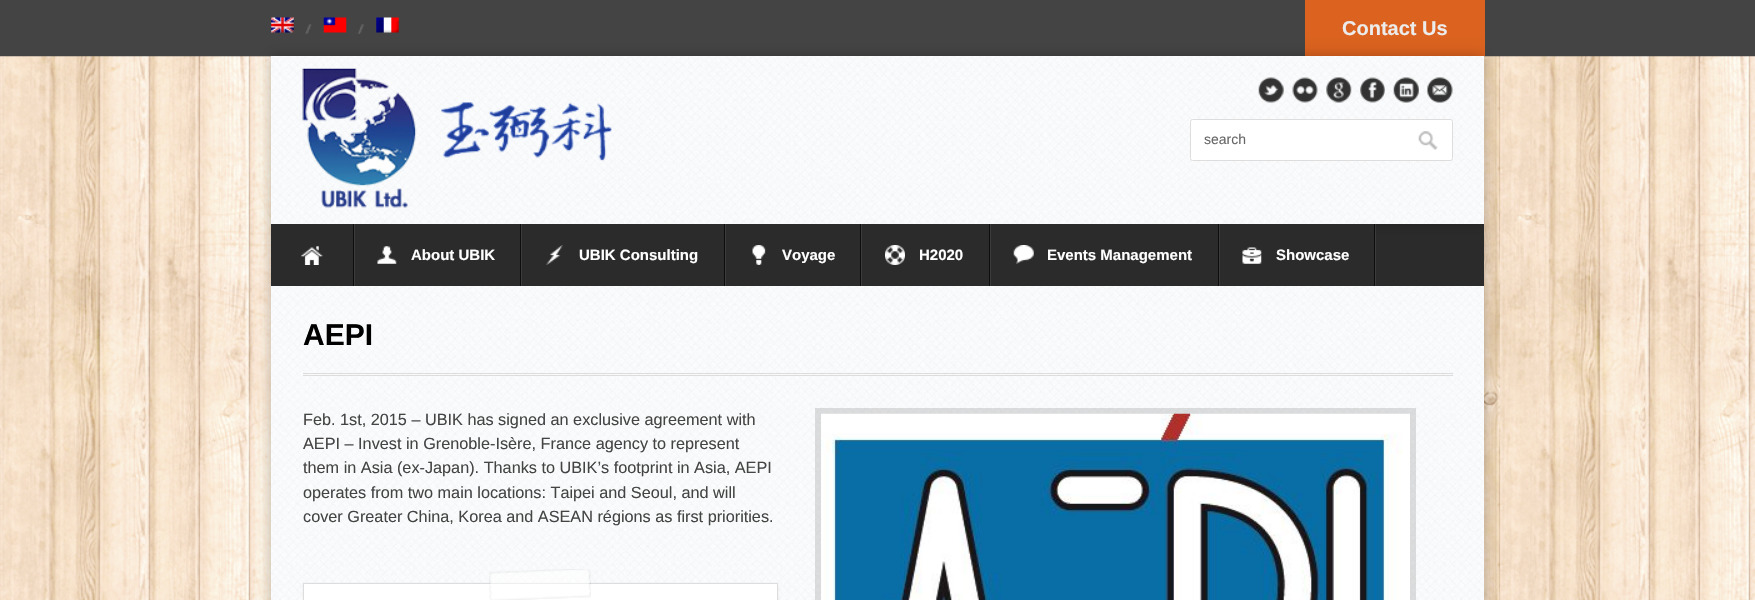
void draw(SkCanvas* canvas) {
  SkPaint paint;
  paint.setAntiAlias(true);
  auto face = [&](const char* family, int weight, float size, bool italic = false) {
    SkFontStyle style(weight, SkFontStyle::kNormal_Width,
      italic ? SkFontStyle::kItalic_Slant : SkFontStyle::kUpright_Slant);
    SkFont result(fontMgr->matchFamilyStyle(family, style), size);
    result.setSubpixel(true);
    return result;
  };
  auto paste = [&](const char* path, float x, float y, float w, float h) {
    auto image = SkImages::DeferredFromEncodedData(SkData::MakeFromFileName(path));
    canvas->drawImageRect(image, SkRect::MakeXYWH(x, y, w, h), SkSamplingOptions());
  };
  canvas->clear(0xffffffff);
  paste("img/1.png", 0, 56, 1755, 544);
  paint.setColor(0xff444444);
  canvas->drawRect(SkRect::MakeXYWH(0, 0, 1755, 56), paint);
  paste("img/2.png", 0, 56, 1755, 1);
  paste("img/3.png", 305, 24, 7, 10);
  paste("img/4.png", 271, 17, 23, 16);
  paste("img/5.png", 357, 24, 7, 10);
  paste("img/6.png", 323, 17, 24, 16);
  paste("img/7.png", 376, 17, 23, 16);
  paint.setColor(0xffdb621f);
  canvas->drawRect(SkRect::MakeXYWH(1305, 0, 180, 56), paint);
  paint.setColor(0x40000000);
  paint.setMaskFilter(SkMaskFilter::MakeBlur(kNormal_SkBlurStyle, 6));
  canvas->drawRect(SkRect::MakeXYWH(271, 224, 1213, 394), paint);
  paint.setMaskFilter(nullptr);
  paint.setColor(0xff2b2b2b);
  canvas->drawRect(SkRect::MakeXYWH(1376, 224, 108, 62), paint);
  paint.setColor(0xff3c3c3c);
  canvas->drawRect(SkRect::MakeXYWH(1375, 224, 1, 62), paint);
  paint.setColor(0x40000000);
  paint.setMaskFilter(SkMaskFilter::MakeBlur(kNormal_SkBlurStyle, 6));
  canvas->drawRect(SkRect::MakeXYWH(271, 56, 1213, 168), paint);
  paint.setMaskFilter(nullptr);
  paint.setColor(0xffffffff);
  canvas->drawRect(SkRect::MakeXYWH(271, 56, 1213, 168), paint);
  paste("img/8.png", 271, 56, 1213, 168);
  paste("img/9.png", 302, 68, 310, 140);
  paste("img/10.png", 1258, 77, 26, 26);
  paste("img/11.png", 1292, 77, 26, 26);
  paste("img/12.png", 1326, 77, 26, 26);
  paste("img/13.png", 1360, 77, 25, 26);
  paste("img/14.png", 1393, 77, 26, 26);
  paste("img/15.png", 1427, 77, 26, 26);
  canvas->drawRoundRect(SkRect::MakeXYWH(1190.5f, 119.5f, 262, 41), 2, 2, paint);
  paint.setStroke(true);
  paint.setStrokeWidth(1);
  paint.setColor(0xffdddddd);
  canvas->drawRoundRect(SkRect::MakeXYWH(1190.5f, 119.5f, 262, 41), 2, 2, paint);
  paste("img/16.png", 1418, 131, 20, 19);
  paint.setStroke(false);
  paint.setColor(0xff2b2b2b);
  canvas->drawRect(SkRect::MakeXYWH(271, 224, 82, 62), paint);
  paste("img/17.png", 301, 246, 22, 19);
  paint.setColor(0xff0d0d0d);
  canvas->drawRect(SkRect::MakeXYWH(353, 224, 1, 62), paint);
  paint.setColor(0xff2b2b2b);
  canvas->drawRect(SkRect::MakeXYWH(355, 224, 165, 62), paint);
  paste("img/18.png", 377, 246, 20, 18);
  {
    const struct { float x, y, w, h; SkColor color; } items[] = {
      {520, 224, 1, 62, 0xff0d0d0d},
      {354, 224, 1, 62, 0xff3c3c3c},
      {522, 224, 202, 62, 0xff2b2b2b},
    };
    for (auto [x, y, w, h, color] : items) {
      paint.setColor(color);
      canvas->drawRect(SkRect::MakeXYWH(x, y, w, h), paint);
    }
  }
  paste("img/19.png", 546, 245, 17, 20);
  {
    const struct { float x, y, w, h; SkColor color; } items[] = {
      {724, 224, 1, 62, 0xff0d0d0d},
      {521, 224, 1, 62, 0xff3c3c3c},
      {726, 224, 134, 62, 0xff2b2b2b},
    };
    for (auto [x, y, w, h, color] : items) {
      paint.setColor(color);
      canvas->drawRect(SkRect::MakeXYWH(x, y, w, h), paint);
    }
  }
  paste("img/20.png", 752, 245, 14, 20);
  {
    const struct { float x, y, w, h; SkColor color; } items[] = {
      {860, 224, 1, 62, 0xff0d0d0d},
      {725, 224, 1, 62, 0xff3c3c3c},
      {862, 224, 127, 62, 0xff2b2b2b},
    };
    for (auto [x, y, w, h, color] : items) {
      paint.setColor(color);
      canvas->drawRect(SkRect::MakeXYWH(x, y, w, h), paint);
    }
  }
  paste("img/21.png", 885, 245, 20, 20);
  {
    const struct { float x, y, w, h; SkColor color; } items[] = {
      {989, 224, 1, 62, 0xff0d0d0d},
      {861, 224, 1, 62, 0xff3c3c3c},
      {991, 224, 227, 62, 0xff2b2b2b},
    };
    for (auto [x, y, w, h, color] : items) {
      paint.setColor(color);
      canvas->drawRect(SkRect::MakeXYWH(x, y, w, h), paint);
    }
  }
  paste("img/22.png", 1013, 245, 21, 19);
  {
    const struct { float x, y, w, h; SkColor color; } items[] = {
      {1218, 224, 1, 62, 0xff0d0d0d},
      {990, 224, 1, 62, 0xff3c3c3c},
      {1220, 224, 154, 62, 0xff2b2b2b},
    };
    for (auto [x, y, w, h, color] : items) {
      paint.setColor(color);
      canvas->drawRect(SkRect::MakeXYWH(x, y, w, h), paint);
    }
  }
  paste("img/23.png", 1242, 247, 20, 17);
  {
    const struct { float x, y, w, h; SkColor color; } items[] = {
      {1374, 224, 1, 62, 0xff0d0d0d},
      {1219, 224, 1, 62, 0xff3c3c3c},
      {271, 286, 1213, 314, 0xffffffff},
    };
    for (auto [x, y, w, h, color] : items) {
      paint.setColor(color);
      canvas->drawRect(SkRect::MakeXYWH(x, y, w, h), paint);
    }
  }
  paste("img/24.png", 271, 286, 1213, 314);
  paint.setColor(0xffdddddd);
  canvas->drawRect(SkRect::MakeXYWH(303, 373, 1150, 1), paint);
  canvas->drawRect(SkRect::MakeXYWH(303, 375, 1150, 1), paint);
  paint.setColor(0x14000000);
  paint.setMaskFilter(SkMaskFilter::MakeBlur(kNormal_SkBlurStyle, 1));
  canvas->drawRect(SkRect::MakeXYWH(303, 585, 475, 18), paint);
  paint.setMaskFilter(nullptr);
  paint.setColor(0xffffffff);
  canvas->drawRect(SkRect::MakeXYWH(304, 584, 473, 16), paint);
  paste("img/25.png", 302, 582, 476, 2);
  paint.setStroke(true);
  paint.setColor(0xffdddddd);
  canvas->drawRect(SkRect::MakeXYWH(303.5f, 583.5f, 474, 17), paint);
  paste("img/26.png", 489, 569, 102, 31);
  paint.setStrokeWidth(6);
  paint.setColor(0x1f000000);
  canvas->drawRect(SkRect::MakeXYWH(818, 411, 595, 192), paint);
  paste("img/27.png", 821, 413, 589, 187);
  auto f0 = face("Liberation Sans", 700, 20);
  paint.setStroke(false);
  paint.setColor(0xffececec);
  canvas->drawString("Contact Us", 1342, 35, f0, paint);
  auto f1 = face("Liberation Sans", 400, 14);
  paint.setColor(0xff666666);
  canvas->drawString("search", 1204, 144, f1, paint);
  auto f2 = face("Liberation Sans", 700, 15);
  paint.setColor(0xffffffff);
  {
    const struct { const char* s; float x, y; } items[] = {
      {"About UBIK", 411, 260},
      {"UBIK Consulting", 579, 260},
      {"Voyage", 782, 260},
      {"H2020", 919, 260},
      {"Events Management", 1047, 260},
      {"Showcase", 1276, 260},
    };
    for (auto [s, x, y] : items) {
      canvas->drawString(s, x, y, f2, paint);
    }
  }
  auto f3 = face("Liberation Sans", 700, 30);
  paint.setColor(0xff000000);
  canvas->drawString("AEPI", 303, 345, f3, paint);
  auto f4 = face("Liberation Sans", 400, 16.25f);
  paint.setColor(0xff444444);
  {
    const struct { const char* s; float x, y; } items[] = {
      {"Feb. 1st, 2015 – UBIK has signed an exclusive agreement with", 303, 425},
      {"AEPI – Invest in Grenoble-Isère, France agency to represent", 303, 449},
      {"them in Asia (ex-Japan). Thanks to UBIK’s footprint in Asia, AEPI", 303, 473},
      {"operates from two main locations: Taipei and Seoul, and will", 303, 498},
      {"cover Greater China, Korea and ASEAN régions as first priorities.", 303, 522},
    };
    for (auto [s, x, y] : items) {
      canvas->drawString(s, x, y, f4, paint);
    }
  }
}
